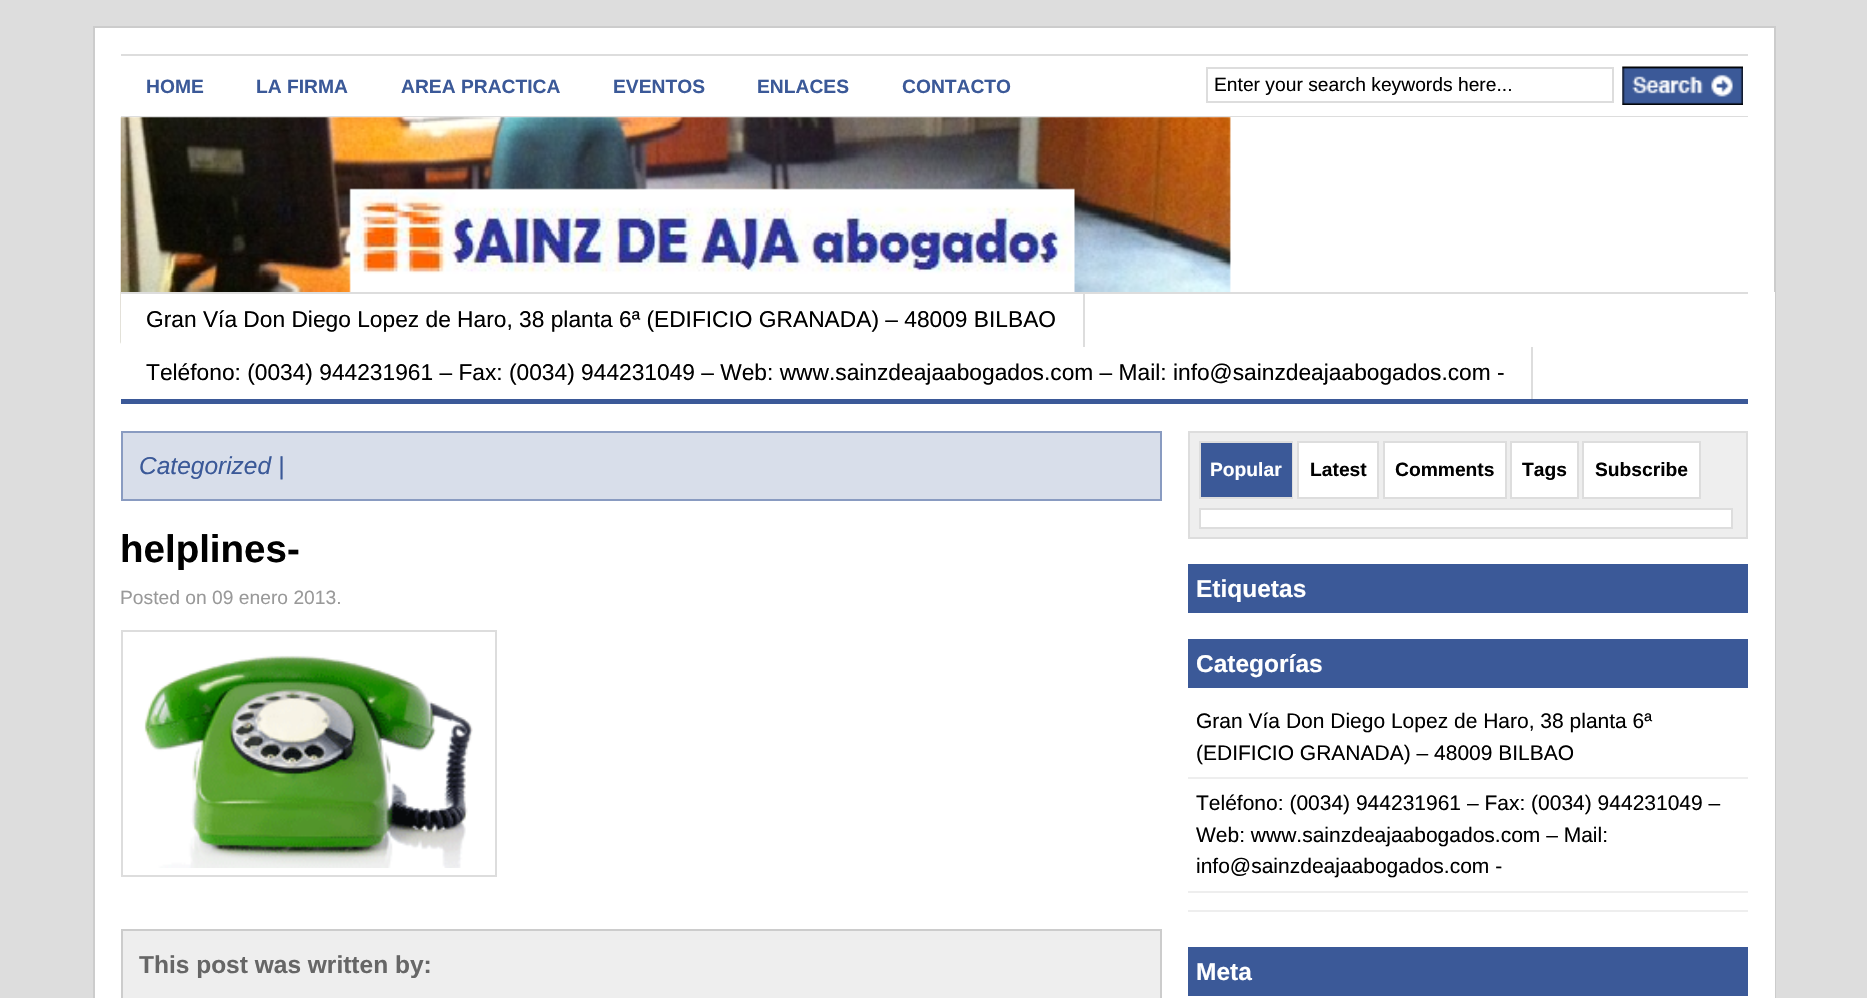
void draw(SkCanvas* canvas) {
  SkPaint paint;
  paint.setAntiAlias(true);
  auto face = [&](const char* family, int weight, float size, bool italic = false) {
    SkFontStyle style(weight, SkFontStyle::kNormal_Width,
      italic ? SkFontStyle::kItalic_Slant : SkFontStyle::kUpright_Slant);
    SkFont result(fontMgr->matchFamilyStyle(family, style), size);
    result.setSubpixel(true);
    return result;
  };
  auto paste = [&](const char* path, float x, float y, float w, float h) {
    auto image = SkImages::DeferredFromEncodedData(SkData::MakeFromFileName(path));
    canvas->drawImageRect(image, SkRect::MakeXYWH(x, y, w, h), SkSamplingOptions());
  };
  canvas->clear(0xffdddddd);
  paint.setColor(0xffffffff);
  canvas->drawRect(SkRect::MakeXYWH(95, 28, 1679, 264), paint);
  paint.setStroke(true);
  paint.setStrokeWidth(2);
  paint.setColor(0xffcccccc);
  canvas->drawRect(SkRect::MakeXYWH(94, 27, 1681, 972), paint);
  paint.setStroke(false);
  paint.setColor(0xffdddddd);
  canvas->drawRect(SkRect::MakeXYWH(121, 54, 1627, 2), paint);
  canvas->drawRect(SkRect::MakeXYWH(121, 116, 1627, 1), paint);
  paint.setStroke(true);
  canvas->drawRect(SkRect::MakeXYWH(1207, 68, 406, 34), paint);
  paste("img/1.png", 1622, 66, 121, 39);
  paint.setStroke(false);
  paint.setColor(0xffffffff);
  canvas->drawRect(SkRect::MakeXYWH(95, 292, 1680, 706), paint);
  paste("img/2.png", 120, 117, 1111, 227);
  {
    const struct { float x, y, w, h; SkColor color; } items[] = {
      {121, 294, 1110, 50, 0xffffffff},
      {121, 292, 1627, 2, 0xffdddddd},
      {121, 399, 1627, 5, 0xff3b5998},
      {1083, 294, 2, 53, 0xffdddddd},
      {1531, 347, 2, 52, 0xffdddddd},
    };
    for (auto [x, y, w, h, color] : items) {
      paint.setColor(color);
      canvas->drawRect(SkRect::MakeXYWH(x, y, w, h), paint);
    }
  }
  paint.setColor(0xffd8deea);
  canvas->drawRect(SkRect::MakeXYWH(122, 432, 1039, 68), paint);
  paint.setStroke(true);
  paint.setColor(0xff899bc1);
  canvas->drawRect(SkRect::MakeXYWH(122, 432, 1039, 68), paint);
  paint.setColor(0xffdddddd);
  canvas->drawRect(SkRect::MakeXYWH(122, 631, 374, 245), paint);
  paste("img/3.png", 144, 655, 329, 213);
  paint.setStroke(false);
  paint.setColor(0xffeeeeee);
  canvas->drawRect(SkRect::MakeXYWH(122, 930, 1039, 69), paint);
  paint.setStroke(true);
  paint.setColor(0xffcccccc);
  canvas->drawRect(SkRect::MakeXYWH(122, 930, 1039, 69), paint);
  paint.setStroke(false);
  paint.setColor(0xffeeeeee);
  canvas->drawRect(SkRect::MakeXYWH(1189, 432, 558, 106), paint);
  paint.setStroke(true);
  paint.setColor(0xffdddddd);
  canvas->drawRect(SkRect::MakeXYWH(1189, 432, 558, 106), paint);
  canvas->drawRect(SkRect::MakeXYWH(1200, 442, 92, 56), paint);
  paint.setStroke(false);
  paint.setColor(0xff3b5998);
  canvas->drawRect(SkRect::MakeXYWH(1201, 443, 91, 54), paint);
  paint.setColor(0xffffffff);
  canvas->drawRect(SkRect::MakeXYWH(1298, 442, 80, 56), paint);
  paint.setStroke(true);
  paint.setColor(0xffdddddd);
  canvas->drawRect(SkRect::MakeXYWH(1298, 442, 80, 56), paint);
  paint.setStroke(false);
  paint.setColor(0xffffffff);
  canvas->drawRect(SkRect::MakeXYWH(1384, 442, 122, 56), paint);
  paint.setStroke(true);
  paint.setColor(0xffdddddd);
  canvas->drawRect(SkRect::MakeXYWH(1384, 442, 122, 56), paint);
  paint.setStroke(false);
  paint.setColor(0xffffffff);
  canvas->drawRect(SkRect::MakeXYWH(1511, 442, 67, 56), paint);
  paint.setStroke(true);
  paint.setColor(0xffdddddd);
  canvas->drawRect(SkRect::MakeXYWH(1511, 442, 67, 56), paint);
  paint.setStroke(false);
  paint.setColor(0xffffffff);
  canvas->drawRect(SkRect::MakeXYWH(1583, 442, 117, 56), paint);
  paint.setStroke(true);
  paint.setColor(0xffdddddd);
  canvas->drawRect(SkRect::MakeXYWH(1583, 442, 117, 56), paint);
  paint.setStroke(false);
  paint.setColor(0xffffffff);
  canvas->drawRect(SkRect::MakeXYWH(1200, 509, 532, 19), paint);
  paint.setStroke(true);
  paint.setColor(0xffdddddd);
  canvas->drawRect(SkRect::MakeXYWH(1200, 509, 532, 19), paint);
  paint.setStroke(false);
  {
    const struct { float x, y, w, h; SkColor color; } items[] = {
      {1188, 564, 560, 49, 0xff3b5998},
      {1188, 639, 560, 49, 0xff3b5998},
      {1188, 777, 560, 2, 0xffeeeeee},
      {1188, 891, 560, 2, 0xffeeeeee},
      {1188, 910, 560, 2, 0xffeeeeee},
      {1188, 947, 560, 49, 0xff3b5998},
    };
    for (auto [x, y, w, h, color] : items) {
      paint.setColor(color);
      canvas->drawRect(SkRect::MakeXYWH(x, y, w, h), paint);
    }
  }
  auto f0 = face("Liberation Sans", 700, 19.25f);
  {
    const struct { const char* s; float x, y; } items[] = {
      {"HOME", 146, 93},
      {"LA FIRMA", 256, 93},
      {"AREA PRACTICA", 401, 93},
      {"EVENTOS", 613, 93},
      {"ENLACES", 757, 93},
      {"CONTACTO", 902, 93},
    };
    for (auto [s, x, y] : items) {
      canvas->drawString(s, x, y, f0, paint);
    }
  }
  auto f1 = face("Liberation Sans", 400, 19.25f);
  paint.setColor(0xff000000);
  canvas->drawString("Enter your search keywords here...", 1214, 91, f1, paint);
  auto f2 = face("Liberation Sans", 400, 22.75f);
  canvas->drawString("Gran Vía Don Diego Lopez de Haro, 38 planta 6ª (EDIFICIO GRANADA) – 48009 BILBAO", 146, 327, f2, paint);
  canvas->drawString("Teléfono: (0034) 944231961 – Fax: (0034) 944231049 – Web: www.sainzdeajaabogados.com – Mail: info@sainzdeajaabogados.com -", 146, 380, f2, paint);
  auto f3 = face("Liberation Sans", 400, 24.5f, true);
  paint.setColor(0xff3b5998);
  canvas->drawString("Categorized |", 139, 474, f3, paint);
  auto f4 = face("Liberation Sans", 700, 38.5f);
  paint.setColor(0xff000000);
  canvas->drawString("helplines-", 120, 562, f4, paint);
  paint.setColor(0xff999999);
  canvas->drawString("Posted on 09 enero 2013.", 120, 604, f1, paint);
  auto f5 = face("Liberation Sans", 700, 24.5f);
  paint.setColor(0xff666666);
  canvas->drawString("This post was written by:", 139, 973, f5, paint);
  paint.setColor(0xffffffff);
  canvas->drawString("Popular", 1210, 476, f0, paint);
  paint.setColor(0xff000000);
  {
    const struct { const char* s; float x, y; } items[] = {
      {"Latest", 1310, 476},
      {"Comments", 1395, 476},
      {"Tags", 1522, 476},
      {"Subscribe", 1595, 476},
    };
    for (auto [s, x, y] : items) {
      canvas->drawString(s, x, y, f0, paint);
    }
  }
  paint.setColor(0xffffffff);
  canvas->drawString("Etiquetas", 1196, 597, f5, paint);
  canvas->drawString("Categorías", 1196, 672, f5, paint);
  auto f6 = face("Liberation Sans", 400, 21);
  paint.setColor(0xff000000);
  {
    const struct { const char* s; float x, y; } items[] = {
      {"Gran Vía Don Diego Lopez de Haro, 38 planta 6ª", 1196, 728},
      {"(EDIFICIO GRANADA) – 48009 BILBAO", 1196, 760},
      {"Teléfono: (0034) 944231961 – Fax: (0034) 944231049 –", 1196, 810},
      {"Web: www.sainzdeajaabogados.com – Mail:", 1196, 842},
      {"info@sainzdeajaabogados.com -", 1196, 873},
    };
    for (auto [s, x, y] : items) {
      canvas->drawString(s, x, y, f6, paint);
    }
  }
  paint.setColor(0xffffffff);
  canvas->drawString("Meta", 1196, 980, f5, paint);
}
